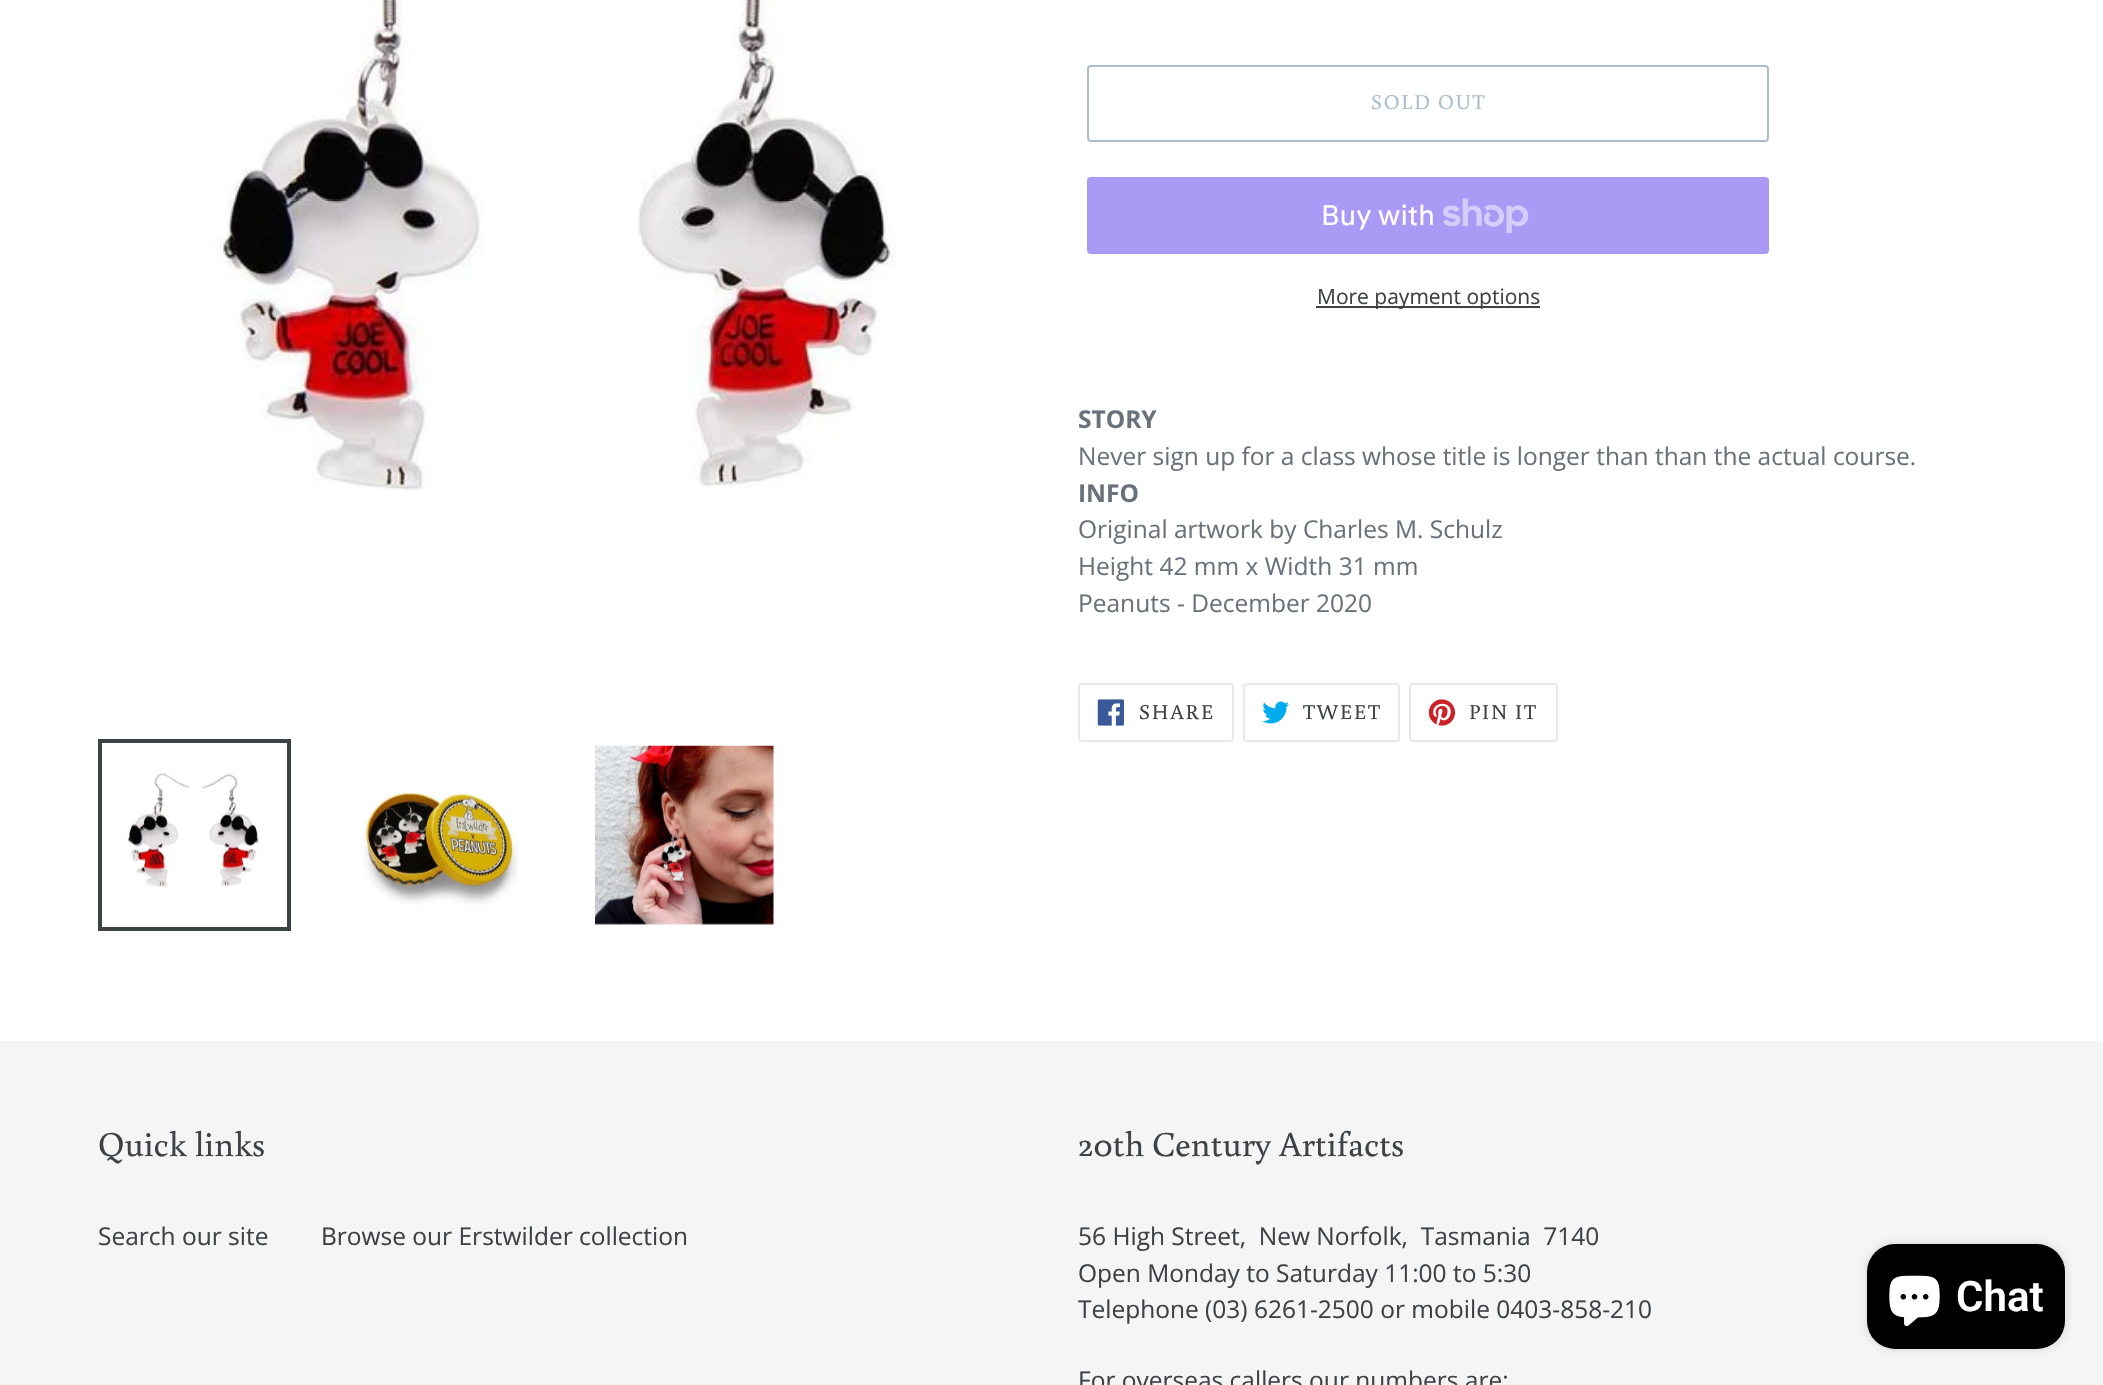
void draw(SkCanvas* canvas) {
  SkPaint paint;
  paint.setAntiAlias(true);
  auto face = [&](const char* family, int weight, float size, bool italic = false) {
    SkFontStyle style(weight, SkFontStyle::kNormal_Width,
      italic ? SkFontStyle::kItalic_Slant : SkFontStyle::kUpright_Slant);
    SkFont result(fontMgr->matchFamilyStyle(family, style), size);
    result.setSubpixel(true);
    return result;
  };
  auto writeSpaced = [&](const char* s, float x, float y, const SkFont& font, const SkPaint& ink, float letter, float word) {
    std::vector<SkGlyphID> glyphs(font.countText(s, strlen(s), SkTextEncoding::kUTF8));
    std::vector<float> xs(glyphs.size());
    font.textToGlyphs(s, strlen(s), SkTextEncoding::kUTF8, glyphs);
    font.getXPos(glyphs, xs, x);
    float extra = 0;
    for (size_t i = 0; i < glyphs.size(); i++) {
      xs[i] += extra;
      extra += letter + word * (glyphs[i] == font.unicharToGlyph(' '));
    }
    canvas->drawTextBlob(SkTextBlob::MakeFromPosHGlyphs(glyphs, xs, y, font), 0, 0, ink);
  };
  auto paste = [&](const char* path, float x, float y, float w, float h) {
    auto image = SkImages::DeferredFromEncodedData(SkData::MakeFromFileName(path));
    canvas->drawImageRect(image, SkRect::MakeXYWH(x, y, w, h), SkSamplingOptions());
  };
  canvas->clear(0xffffffff);
  paste("img/1.png", 215, 0, 682, 491);
  paint.setStroke(true);
  paint.setStrokeWidth(4);
  paint.setColor(0xff3d4246);
  canvas->drawRect(SkRect::MakeXYWH(100, 741, 189, 188), paint);
  paste("img/2.png", 127, 772, 133, 117);
  paste("img/3.png", 363, 791, 156, 114);
  paste("img/4.png", 595, 745, 179, 180);
  paint.setStrokeWidth(2);
  paint.setColor(0xffaabdcb);
  canvas->drawRoundRect(SkRect::MakeXYWH(1088, 66, 680, 75), 3, 3, paint);
  paint.setStroke(false);
  paint.setColor(0xffaa99f5);
  canvas->drawRoundRect(SkRect::MakeXYWH(1087, 177, 682, 77), 4, 4, paint);
  paste("img/5.png", 1443, 198, 86, 35);
  paint.setColor(0xff3d4246);
  canvas->drawRect(SkRect::MakeXYWH(1316, 306, 224, 2), paint);
  paint.setStroke(true);
  paint.setColor(0xffe8e9eb);
  canvas->drawRoundRect(SkRect::MakeXYWH(1079, 684, 154, 57), 3, 3, paint);
  paste("img/6.png", 1097, 699, 27, 27);
  canvas->drawRoundRect(SkRect::MakeXYWH(1244, 684, 155, 57), 3, 3, paint);
  paste("img/7.png", 1262, 701, 27, 23);
  canvas->drawRoundRect(SkRect::MakeXYWH(1410, 684, 147, 57), 3, 3, paint);
  paste("img/8.png", 1428, 699, 28, 27);
  paint.setStroke(false);
  paint.setColor(0xfff5f5f5);
  canvas->drawRect(SkRect::MakeXYWH(0, 1041, 2103, 344), paint);
  paint.setColor(0x26000000);
  paint.setMaskFilter(SkMaskFilter::MakeBlur(kNormal_SkBlurStyle, 4.5f));
  canvas->drawRoundRect(SkRect::MakeXYWH(1867, 1244, 198, 105), 28, 28, paint);
  paint.setMaskFilter(nullptr);
  paint.setColor(0xff000000);
  canvas->drawRoundRect(SkRect::MakeXYWH(1867, 1244, 198, 105), 28, 28, paint);
  paste("img/9.png", 1889, 1275, 51, 52);
  auto f0 = face("Buenard", 400, 21);
  paint.setColor(0xffaabdcb);
  writeSpaced("SOLD OUT", 1371, 109, f0, paint, 1.75f, 0);
  auto f1 = face("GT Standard", 400, 28);
  paint.setColor(0xffffffff);
  canvas->drawString("Buy with", 1321, 225, f1, paint);
  auto f2 = face("Open Sans", 400, 21);
  paint.setColor(0xff3d4246);
  canvas->drawString("More payment options", 1317, 304, f2, paint);
  auto f3 = face("Open Sans", 700, 24.5f);
  paint.setColor(0xff69727b);
  canvas->drawString("STORY", 1078, 428, f3, paint);
  auto f4 = face("Open Sans", 400, 24.5f);
  canvas->drawString("Never sign up for a class whose title is longer than than the actual course.", 1078, 465, f4, paint);
  canvas->drawString("INFO", 1078, 502, f3, paint);
  {
    const struct { const char* s; float x, y; } items[] = {
      {"Original artwork by Charles M. Schulz", 1078, 538},
      {"Height 42 mm x Width 31 mm", 1078, 575},
      {"Peanuts - December 2020", 1078, 612},
    };
    for (auto [s, x, y] : items) {
      canvas->drawString(s, x, y, f4, paint);
    }
  }
  paint.setColor(0xff3d4246);
  {
    const struct { const char* s; float x, y; } items[] = {
      {"SHARE", 1139, 719},
      {"TWEET", 1303, 719},
      {"PIN IT", 1469, 719},
    };
    for (auto [s, x, y] : items) {
      writeSpaced(s, x, y, f0, paint, 1.75f, 0);
    }
  }
  auto f5 = face("Buenard", 400, 35);
  canvas->drawString("Quick links", 98, 1156, f5, paint);
  canvas->drawString("Search our site", 98, 1245, f4, paint);
  canvas->drawString("Browse our Erstwilder collection", 321, 1245, f4, paint);
  canvas->drawString("20th Century Artifacts", 1078, 1156, f5, paint);
  {
    const struct { const char* s; float x, y; } items[] = {
      {"56 High Street,  New Norfolk,  Tasmania  7140", 1078, 1245},
      {"Open Monday to Saturday 11:00 to 5:30", 1078, 1282},
      {"Telephone (03) 6261-2500 or mobile 0403-858-210", 1078, 1318},
      {"For overseas callers our numbers are:", 1078, 1389},
    };
    for (auto [s, x, y] : items) {
      canvas->drawString(s, x, y, f4, paint);
    }
  }
  auto f6 = face("Roboto", 600, 42);
  paint.setColor(0xffffffff);
  canvas->drawString("Chat", 1956, 1311, f6, paint);
}
